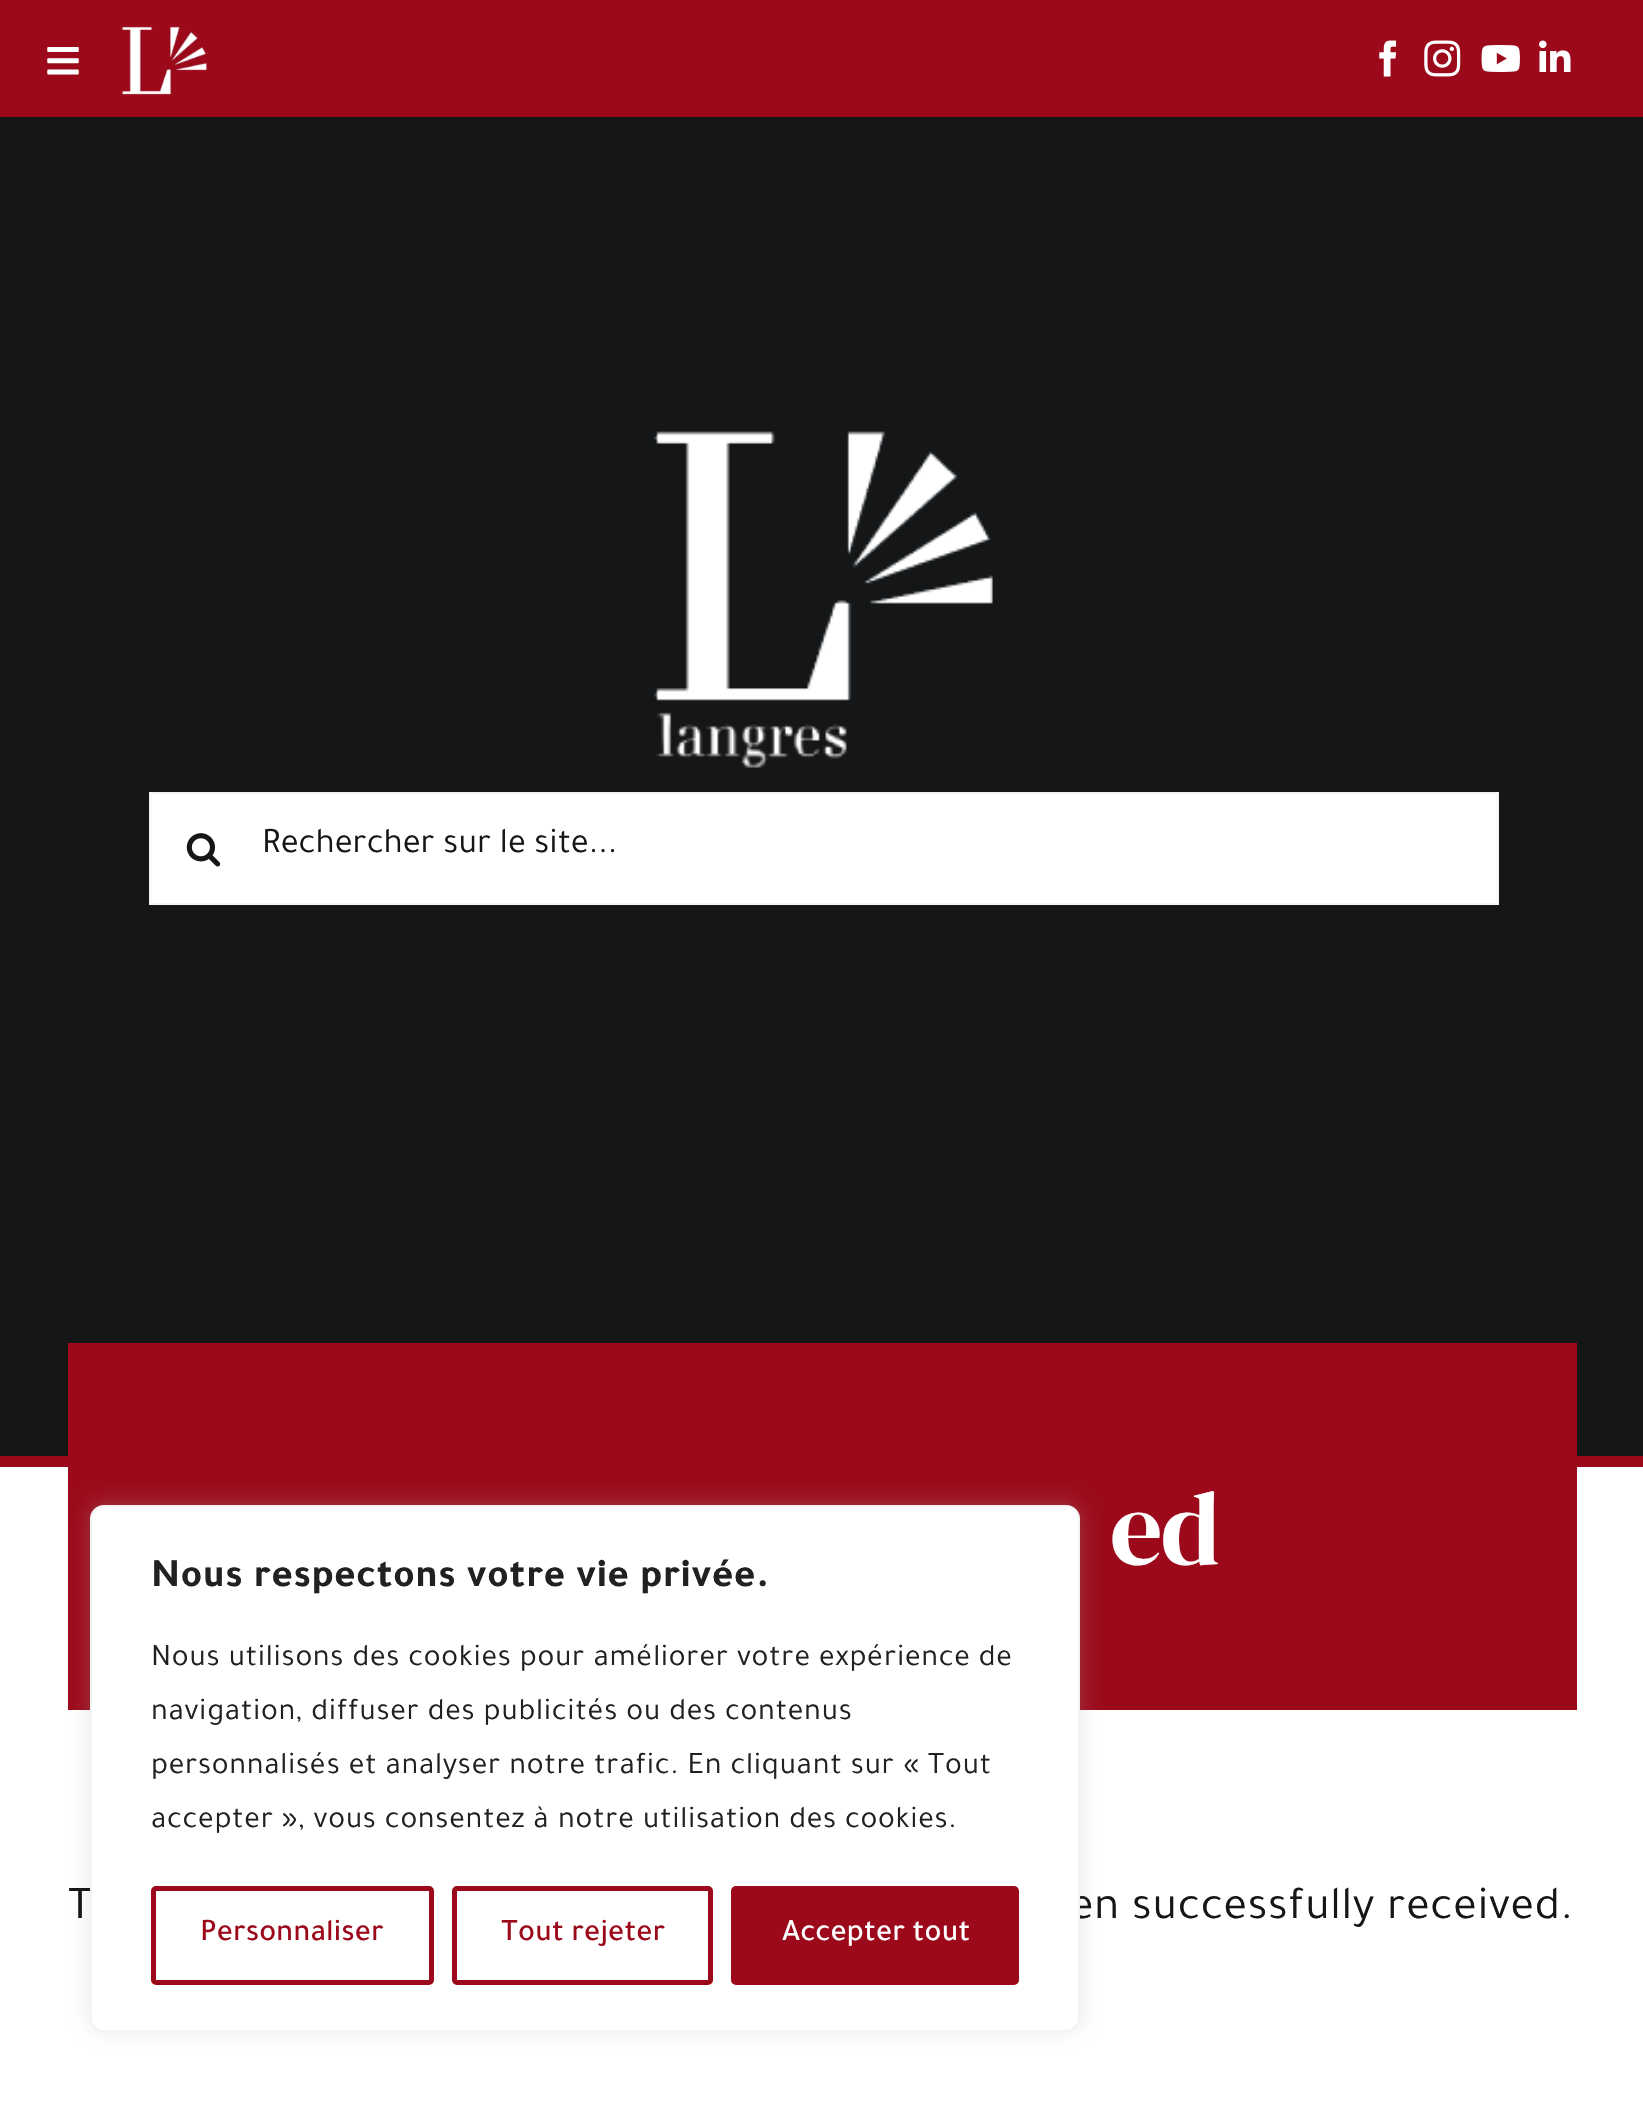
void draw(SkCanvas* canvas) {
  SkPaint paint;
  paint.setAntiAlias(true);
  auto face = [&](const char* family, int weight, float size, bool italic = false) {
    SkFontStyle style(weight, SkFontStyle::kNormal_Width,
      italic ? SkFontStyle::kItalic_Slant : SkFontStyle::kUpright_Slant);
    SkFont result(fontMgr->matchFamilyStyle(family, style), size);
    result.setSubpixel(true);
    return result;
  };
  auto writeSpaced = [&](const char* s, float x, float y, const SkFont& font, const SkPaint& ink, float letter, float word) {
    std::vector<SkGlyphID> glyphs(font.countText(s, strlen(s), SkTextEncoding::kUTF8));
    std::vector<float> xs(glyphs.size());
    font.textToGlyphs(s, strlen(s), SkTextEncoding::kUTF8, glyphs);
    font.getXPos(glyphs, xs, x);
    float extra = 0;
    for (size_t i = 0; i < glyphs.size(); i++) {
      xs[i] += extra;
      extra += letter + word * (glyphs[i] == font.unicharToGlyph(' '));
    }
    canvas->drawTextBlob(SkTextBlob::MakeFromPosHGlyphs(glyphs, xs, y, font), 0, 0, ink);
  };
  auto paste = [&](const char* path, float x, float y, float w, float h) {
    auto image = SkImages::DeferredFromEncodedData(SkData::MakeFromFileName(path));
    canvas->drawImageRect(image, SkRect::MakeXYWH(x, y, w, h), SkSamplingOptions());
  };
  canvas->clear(0xffffffff);
  paint.setColor(0xff9b091a);
  canvas->drawRect(SkRect::MakeXYWH(0, 0, 1643, 117), paint);
  paste("img/1.png", 47, 47, 32, 28);
  paste("img/2.png", 121, 26, 86, 69);
  paste("img/3.png", 1379, 40, 18, 37);
  paste("img/4.png", 1424, 40, 37, 37);
  paste("img/5.png", 1481, 45, 39, 27);
  paste("img/6.png", 1539, 40, 32, 32);
  paint.setColor(0xff141617);
  canvas->drawRect(SkRect::MakeXYWH(0, 117, 1643, 1339), paint);
  paste("img/7.png", 654, 431, 339, 337);
  paint.setColor(0xffffffff);
  canvas->drawRect(SkRect::MakeXYWH(150, 793, 1348, 111), paint);
  paint.setStroke(true);
  paint.setStrokeWidth(2);
  paint.setColor(0xfff2f3f5);
  canvas->drawRect(SkRect::MakeXYWH(150, 793, 1348, 111), paint);
  paste("img/8.png", 186, 833, 35, 34);
  paint.setStroke(false);
  paint.setColor(0xff9b091a);
  canvas->drawRect(SkRect::MakeXYWH(0, 1456, 1643, 11), paint);
  canvas->drawRect(SkRect::MakeXYWH(68, 1343, 1509, 367), paint);
  paint.setColor(0x4dacabab);
  paint.setMaskFilter(SkMaskFilter::MakeBlur(kNormal_SkBlurStyle, 11));
  canvas->drawRoundRect(SkRect::MakeXYWH(90, 1503, 990, 527), 14, 14, paint);
  paint.setMaskFilter(nullptr);
  auto f0 = face("Tajawal", 400, 36);
  paint.setColor(0xff141617);
  canvas->drawString("Rechercher sur le site...", 262, 852, f0, paint);
  auto f1 = face("DM Serif Display", 400, 104);
  paint.setColor(0xffffffff);
  writeSpaced("ed", 1110, 1564, f1, paint, -2, 0);
  auto f2 = face("Tajawal", 400, 47.25f);
  paint.setColor(0xff141617);
  writeSpaced("T", 68, 1918, f2, paint, 0.7f, 0);
  writeSpaced("en successfully received.", 1070, 1918, f2, paint, 0.7f, 0);
  paint.setColor(0xffffffff);
  canvas->drawRoundRect(SkRect::MakeXYWH(91, 1506, 988, 525), 13, 13, paint);
  paint.setStroke(true);
  paint.setColor(0xfff4f4f4);
  canvas->drawRoundRect(SkRect::MakeXYWH(91, 1506, 988, 525), 13, 13, paint);
  auto f3 = face("Tajawal", 700, 40.5f);
  paint.setStroke(false);
  paint.setColor(0xff212121);
  writeSpaced("Nous respectons votre vie privée.", 151, 1586, f3, paint, 0.7f, 0);
  auto f4 = face("Tajawal", 400, 31.5f);
  {
    const struct { const char* s; float x, y; } items[] = {
      {"Nous utilisons des cookies pour améliorer votre expérience de", 151, 1665},
      {"navigation, diffuser des publicités ou des contenus", 151, 1719},
      {"personnalisés et analyser notre trafic. En cliquant sur « Tout", 151, 1773},
      {"accepter », vous consentez à notre utilisation des cookies.", 151, 1827},
    };
    for (auto [s, x, y] : items) {
      writeSpaced(s, x, y, f4, paint, 0.7f, 0);
    }
  }
  paint.setStroke(true);
  paint.setStrokeWidth(5);
  paint.setColor(0xff9b091a);
  canvas->drawRoundRect(SkRect::MakeXYWH(153.5f, 1888.5f, 278, 94), 2.5f, 2.5f, paint);
  auto f5 = face("Tajawal", 500, 31.5f);
  paint.setStroke(false);
  canvas->drawString("Personnaliser", 200, 1940, f5, paint);
  paint.setStroke(true);
  canvas->drawRoundRect(SkRect::MakeXYWH(454.5f, 1888.5f, 256, 94), 2.5f, 2.5f, paint);
  paint.setStroke(false);
  canvas->drawString("Tout rejeter", 501, 1940, f5, paint);
  canvas->drawRoundRect(SkRect::MakeXYWH(733.5f, 1888.5f, 283, 94), 2.5f, 2.5f, paint);
  paint.setStroke(true);
  canvas->drawRoundRect(SkRect::MakeXYWH(733.5f, 1888.5f, 283, 94), 2.5f, 2.5f, paint);
  paint.setStroke(false);
  paint.setColor(0xffffffff);
  canvas->drawString("Accepter tout", 782, 1940, f5, paint);
}
